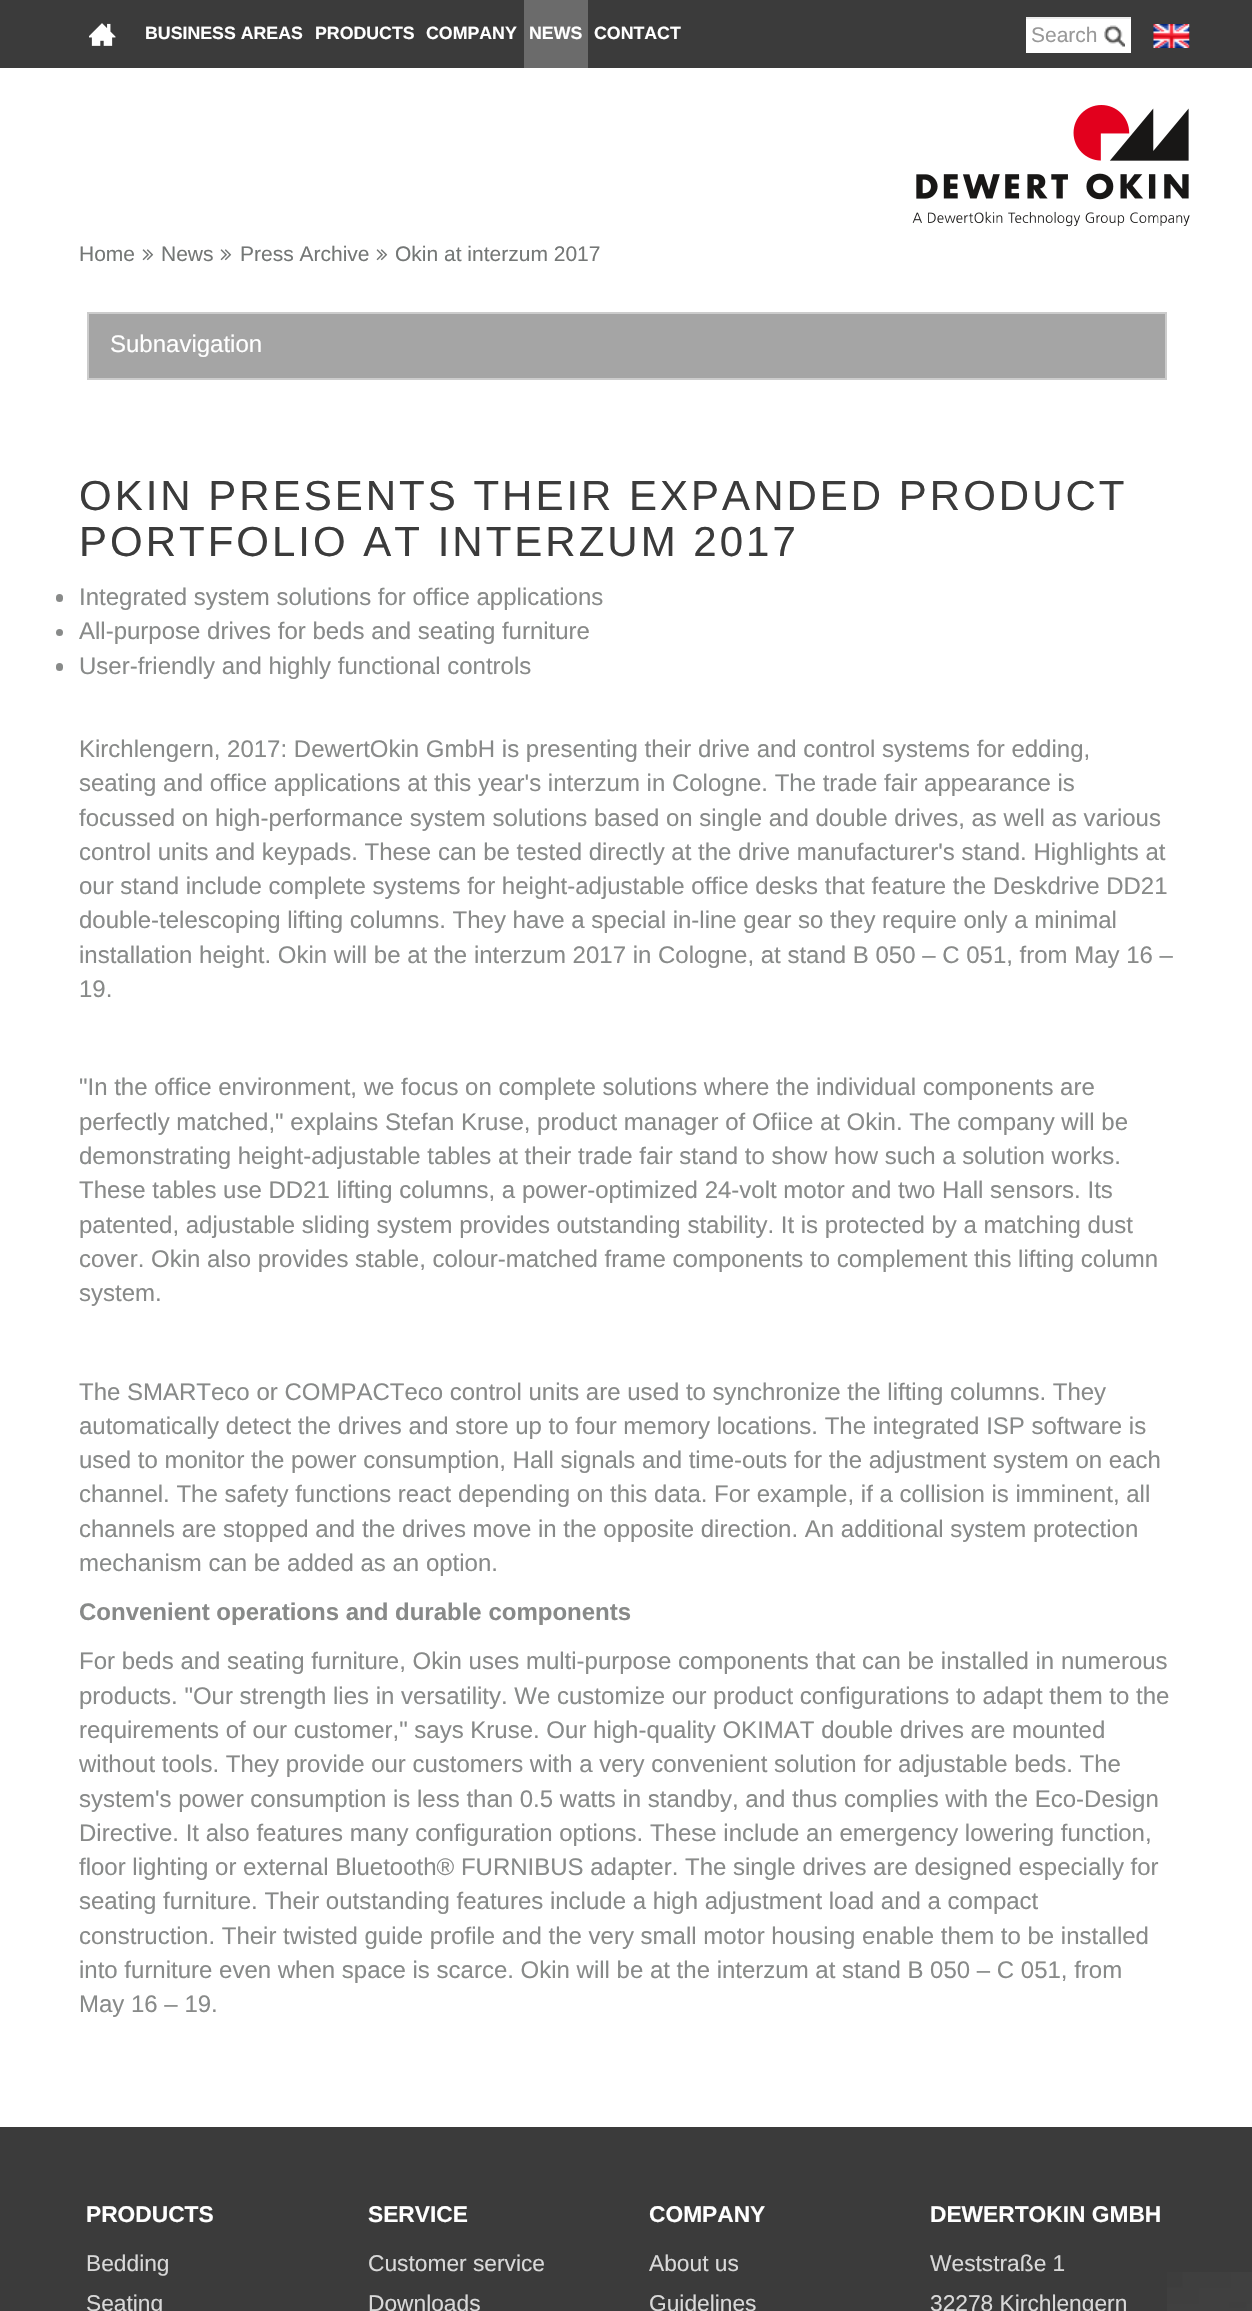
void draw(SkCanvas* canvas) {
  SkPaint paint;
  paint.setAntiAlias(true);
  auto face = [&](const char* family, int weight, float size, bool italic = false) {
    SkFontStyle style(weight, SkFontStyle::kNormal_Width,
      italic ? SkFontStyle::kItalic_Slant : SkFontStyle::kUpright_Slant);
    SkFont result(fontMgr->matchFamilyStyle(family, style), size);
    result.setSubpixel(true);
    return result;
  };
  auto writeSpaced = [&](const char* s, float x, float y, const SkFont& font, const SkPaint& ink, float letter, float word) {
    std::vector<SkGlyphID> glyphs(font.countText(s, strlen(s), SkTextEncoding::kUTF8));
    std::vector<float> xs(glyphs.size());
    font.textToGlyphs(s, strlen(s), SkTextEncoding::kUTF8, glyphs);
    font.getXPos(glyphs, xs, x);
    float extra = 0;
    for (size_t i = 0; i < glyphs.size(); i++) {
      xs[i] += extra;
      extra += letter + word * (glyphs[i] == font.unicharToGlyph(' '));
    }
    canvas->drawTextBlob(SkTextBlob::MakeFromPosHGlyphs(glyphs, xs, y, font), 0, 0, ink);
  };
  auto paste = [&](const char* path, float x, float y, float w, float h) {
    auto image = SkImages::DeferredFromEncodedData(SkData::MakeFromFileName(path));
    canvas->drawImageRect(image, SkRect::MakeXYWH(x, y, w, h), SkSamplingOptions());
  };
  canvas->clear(0xffffffff);
  paint.setColor(0xff3b3b3b);
  canvas->drawRect(SkRect::MakeXYWH(0, 0, 1252, 68), paint);
  paste("img/1.png", 89, 23, 27, 23);
  paint.setColor(0xff6b6b6b);
  canvas->drawRect(SkRect::MakeXYWH(524, 0, 64, 68), paint);
  paint.setColor(0xffffffff);
  canvas->drawRect(SkRect::MakeXYWH(1026, 19, 105, 34), paint);
  paste("img/2.png", 1104, 25, 21, 22);
  paint.setColor(0xffececec);
  canvas->drawRect(SkRect::MakeXYWH(1026, 17, 105, 2), paint);
  paste("img/3.png", 1153, 24, 37, 24);
  paste("img/4.png", 912, 105, 278, 122);
  paste("img/5.png", 142, 249, 12, 12);
  paste("img/5.png", 220, 249, 12, 12);
  paste("img/5.png", 376, 249, 12, 12);
  paint.setColor(0xffa5a5a5);
  canvas->drawRect(SkRect::MakeXYWH(88, 313, 1078, 66), paint);
  paint.setStroke(true);
  paint.setStrokeWidth(2);
  paint.setColor(0xffcccccc);
  canvas->drawRect(SkRect::MakeXYWH(88, 313, 1078, 66), paint);
  paint.setStroke(false);
  paint.setColor(0xff888a89);
  canvas->drawRoundRect(SkRect::MakeXYWH(56, 594, 7, 8), 3.5f, 3.5f, paint);
  canvas->drawCircle(59.5f, 632.5f, 3.5f, paint);
  canvas->drawRoundRect(SkRect::MakeXYWH(56, 663, 7, 8), 3.5f, 3.5f, paint);
  paint.setColor(0xff3b3b3b);
  canvas->drawRect(SkRect::MakeXYWH(0, 2127, 1252, 184), paint);
  paste("img/6.png", 1167, 2272, 85, 39);
  auto f0 = face("Liberation Sans", 700, 17.75f);
  paint.setColor(0xffffffff);
  {
    const struct { const char* s; float x, y; } items[] = {
      {"BUSINESS AREAS", 145, 39},
      {"PRODUCTS", 315, 39},
      {"COMPANY", 426, 39},
      {"NEWS", 529, 39},
      {"CONTACT", 594, 39},
    };
    for (auto [s, x, y] : items) {
      canvas->drawString(s, x, y, f0, paint);
    }
  }
  auto f1 = face("Liberation Sans", 400, 21);
  paint.setColor(0xff999999);
  canvas->drawString("Search", 1031, 42, f1, paint);
  paint.setColor(0xff747776);
  {
    const struct { const char* s; float x, y; } items[] = {
      {"Home", 79, 261},
      {"News", 161, 261},
      {"Press Archive", 240, 261},
      {"Okin at interzum 2017", 395, 261},
    };
    for (auto [s, x, y] : items) {
      canvas->drawString(s, x, y, f1, paint);
    }
  }
  auto f2 = face("Liberation Sans", 400, 24);
  paint.setColor(0xffffffff);
  canvas->drawString("Subnavigation", 110, 352, f2, paint);
  auto f3 = face("Liberation Sans", 400, 42);
  paint.setColor(0xff3b3b3b);
  writeSpaced("OKIN PRESENTS THEIR EXPANDED PRODUCT", 79, 510, f3, paint, 3, 0);
  writeSpaced("PORTFOLIO AT INTERZUM 2017", 79, 556, f3, paint, 3, 0);
  paint.setColor(0xff888a89);
  {
    const struct { const char* s; float x, y; } items[] = {
      {"Integrated system solutions for office applications", 79, 605},
      {"All-purpose drives for beds and seating furniture", 79, 639},
      {"User-friendly and highly functional controls", 79, 674},
      {"Kirchlengern, 2017: DewertOkin GmbH is presenting their drive and control systems for edding,", 79, 757},
      {"seating and office applications at this year's interzum in Cologne. The trade fair appearance is", 79, 791},
      {"focussed on high-performance system solutions based on single and double drives, as well as various", 79, 826},
      {"control units and keypads. These can be tested directly at the drive manufacturer's stand. Highlights at", 79, 860},
      {"our stand include complete systems for height-adjustable office desks that feature the Deskdrive DD21", 79, 894},
      {"double-telescoping lifting columns. They have a special in-line gear so they require only a minimal", 79, 928},
      {"installation height. Okin will be at the interzum 2017 in Cologne, at stand B 050 – C 051, from May 16 –", 79, 963},
      {"19.", 79, 997},
      {"\"In the office environment, we focus on complete solutions where the individual components are", 79, 1095},
      {"perfectly matched,\" explains Stefan Kruse, product manager of Ofiice at Okin. The company will be", 79, 1130},
      {"demonstrating height-adjustable tables at their trade fair stand to show how such a solution works.", 79, 1164},
      {"These tables use DD21 lifting columns, a power-optimized 24-volt motor and two Hall sensors. Its", 79, 1198},
      {"patented, adjustable sliding system provides outstanding stability. It is protected by a matching dust", 79, 1233},
      {"cover. Okin also provides stable, colour-matched frame components to complement this lifting column", 79, 1267},
      {"system.", 79, 1301},
      {"The SMARTeco or COMPACTeco control units are used to synchronize the lifting columns. They", 79, 1400},
      {"automatically detect the drives and store up to four memory locations. The integrated ISP software is", 79, 1434},
      {"used to monitor the power consumption, Hall signals and time-outs for the adjustment system on each", 79, 1468},
      {"channel. The safety functions react depending on this data. For example, if a collision is imminent, all", 79, 1502},
      {"channels are stopped and the drives move in the opposite direction. An additional system protection", 79, 1537},
      {"mechanism can be added as an option.", 79, 1571},
    };
    for (auto [s, x, y] : items) {
      canvas->drawString(s, x, y, f2, paint);
    }
  }
  auto f4 = face("Liberation Sans", 700, 24);
  canvas->drawString("Convenient operations and durable components", 79, 1620, f4, paint);
  {
    const struct { const char* s; float x, y; } items[] = {
      {"For beds and seating furniture, Okin uses multi-purpose components that can be installed in numerous", 79, 1669},
      {"products. \"Our strength lies in versatility. We customize our product configurations to adapt them to the", 79, 1704},
      {"requirements of our customer,\" says Kruse. Our high-quality OKIMAT double drives are mounted", 79, 1738},
      {"without tools. They provide our customers with a very convenient solution for adjustable beds. The", 79, 1772},
      {"system's power consumption is less than 0.5 watts in standby, and thus complies with the Eco-Design", 79, 1807},
      {"Directive. It also features many configuration options. These include an emergency lowering function,", 79, 1841},
      {"floor lighting or external Bluetooth® FURNIBUS adapter. The single drives are designed especially for", 79, 1875},
      {"seating furniture. Their outstanding features include a high adjustment load and a compact", 79, 1909},
      {"construction. Their twisted guide profile and the very small motor housing enable them to be installed", 79, 1944},
      {"into furniture even when space is scarce. Okin will be at the interzum at stand B 050 – C 051, from", 79, 1978},
      {"May 16 – 19.", 79, 2012},
    };
    for (auto [s, x, y] : items) {
      canvas->drawString(s, x, y, f2, paint);
    }
  }
  auto f5 = face("Liberation Sans", 700, 22.75f);
  paint.setColor(0xffffffff);
  canvas->drawString("PRODUCTS", 86, 2222, f5, paint);
  auto f6 = face("Liberation Sans", 400, 22.75f);
  paint.setColor(0xffd8d8d8);
  canvas->drawString("Bedding", 86, 2271, f6, paint);
  canvas->drawString("Seating", 86, 2311, f6, paint);
  paint.setColor(0xffffffff);
  canvas->drawString("SERVICE", 368, 2222, f5, paint);
  paint.setColor(0xffd8d8d8);
  canvas->drawString("Customer service", 368, 2271, f6, paint);
  canvas->drawString("Downloads", 368, 2311, f6, paint);
  paint.setColor(0xffffffff);
  canvas->drawString("COMPANY", 649, 2222, f5, paint);
  paint.setColor(0xffd8d8d8);
  canvas->drawString("About us", 649, 2271, f6, paint);
  canvas->drawString("Guidelines", 649, 2311, f6, paint);
  paint.setColor(0xffffffff);
  canvas->drawString("DEWERTOKIN GMBH", 930, 2222, f5, paint);
  paint.setColor(0xffd8d8d8);
  canvas->drawString("Weststraße 1", 930, 2271, f6, paint);
  canvas->drawString("32278 Kirchlengern", 930, 2311, f6, paint);
}
